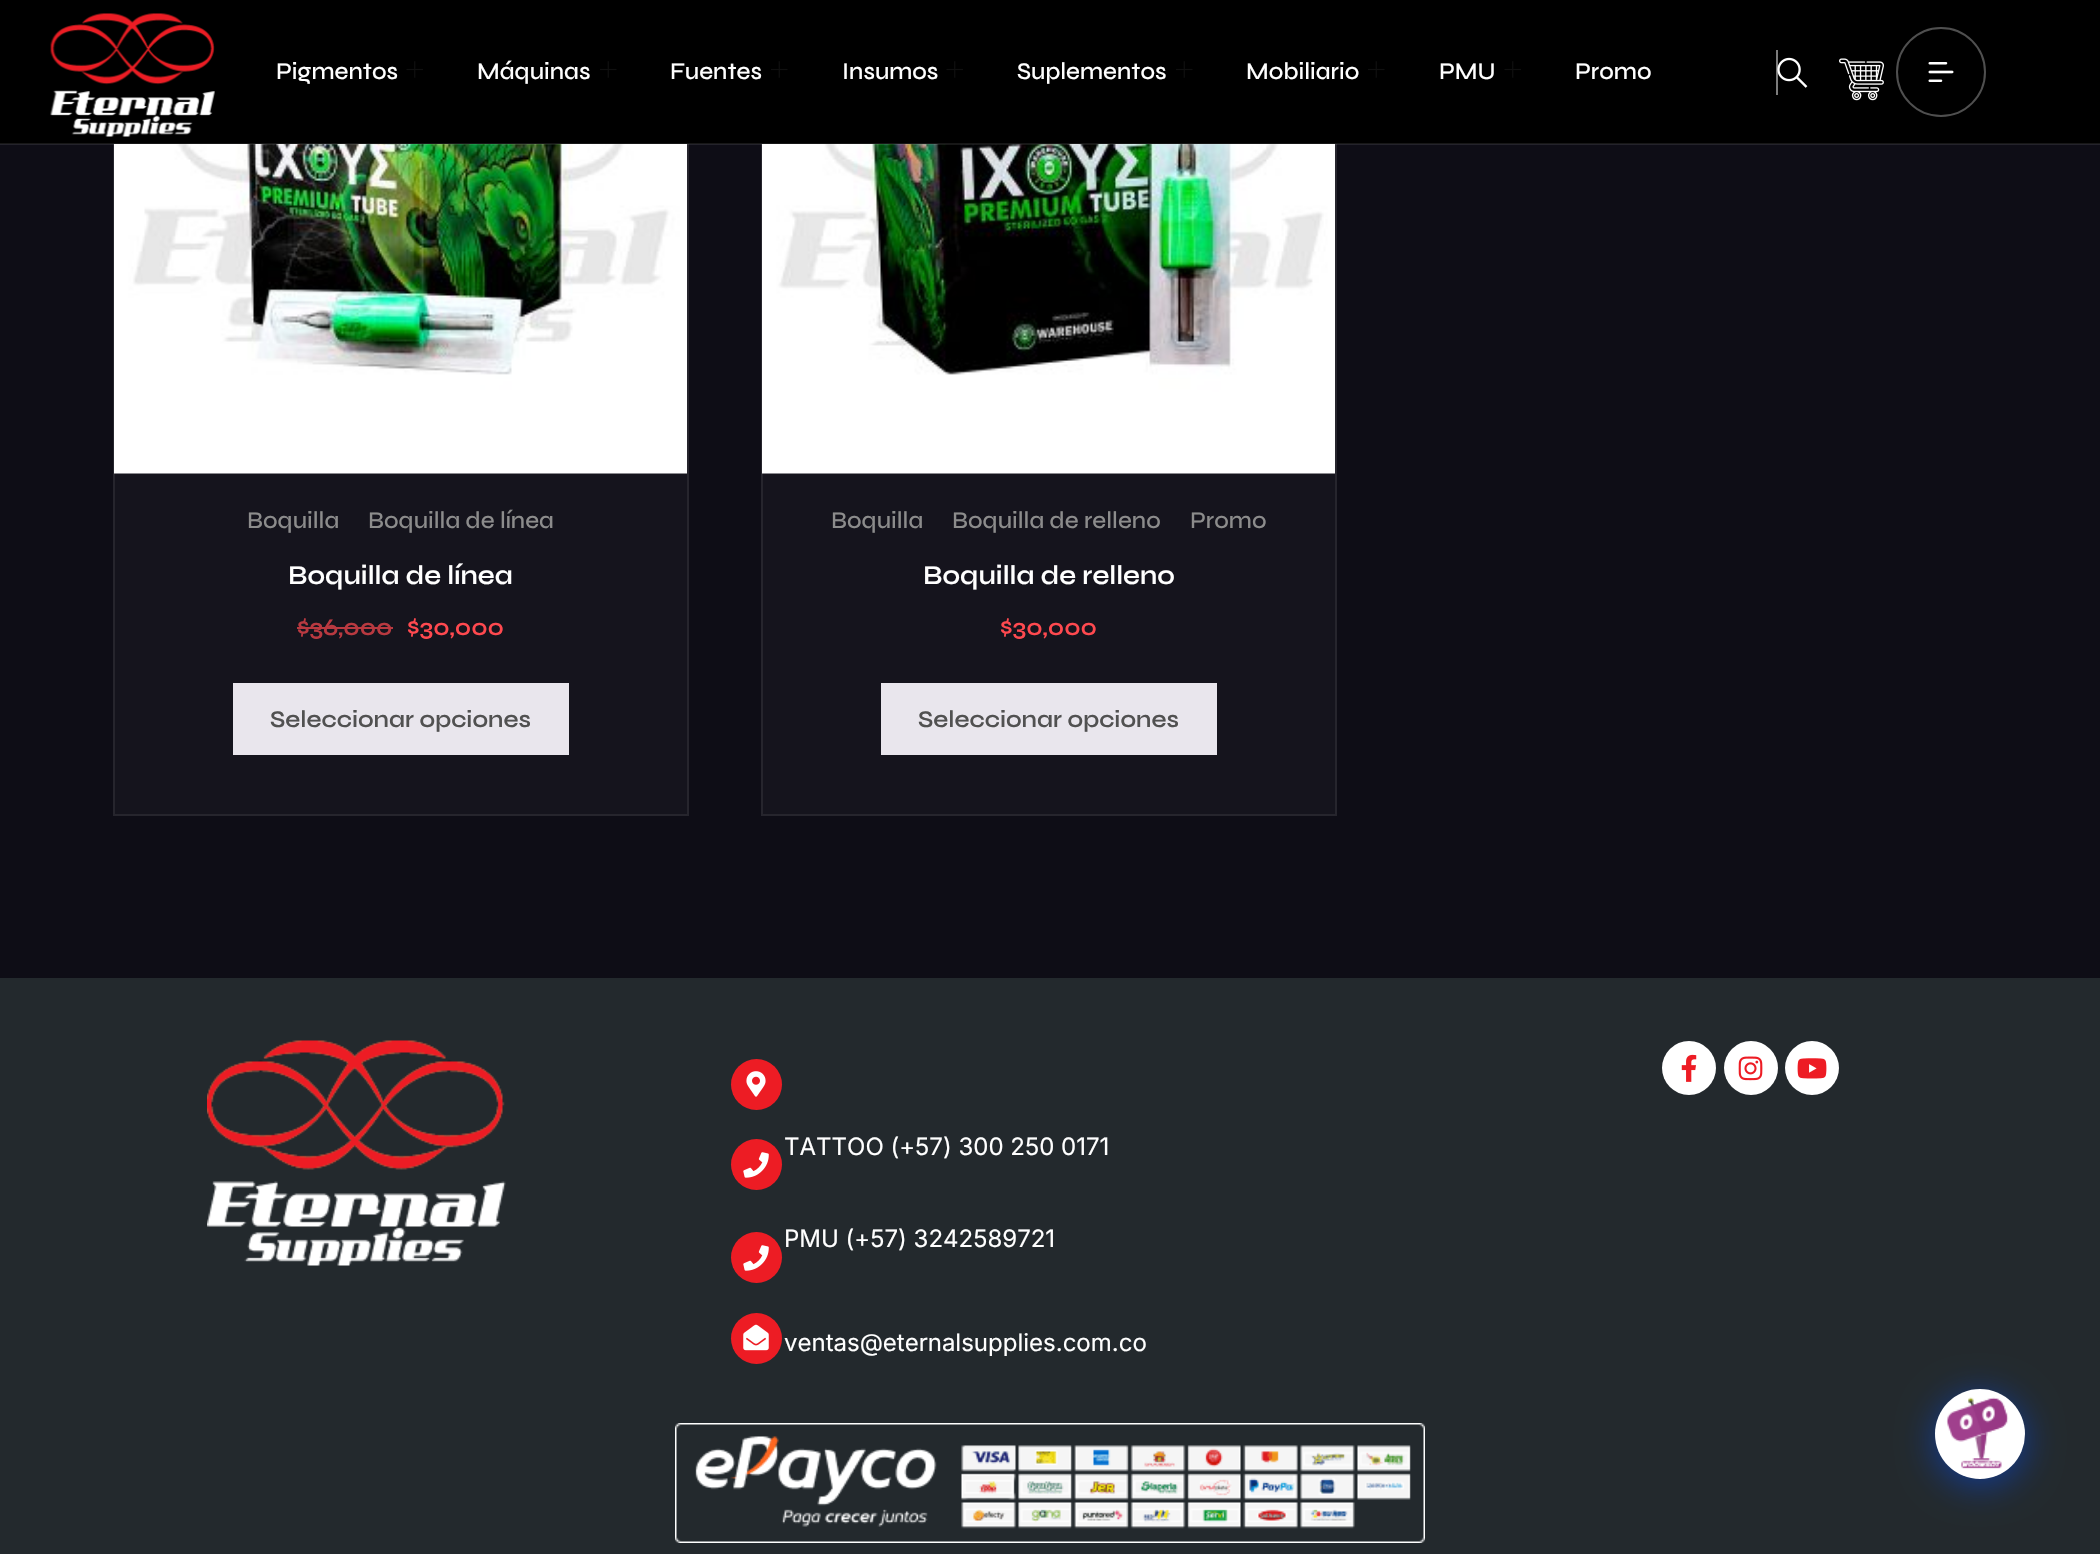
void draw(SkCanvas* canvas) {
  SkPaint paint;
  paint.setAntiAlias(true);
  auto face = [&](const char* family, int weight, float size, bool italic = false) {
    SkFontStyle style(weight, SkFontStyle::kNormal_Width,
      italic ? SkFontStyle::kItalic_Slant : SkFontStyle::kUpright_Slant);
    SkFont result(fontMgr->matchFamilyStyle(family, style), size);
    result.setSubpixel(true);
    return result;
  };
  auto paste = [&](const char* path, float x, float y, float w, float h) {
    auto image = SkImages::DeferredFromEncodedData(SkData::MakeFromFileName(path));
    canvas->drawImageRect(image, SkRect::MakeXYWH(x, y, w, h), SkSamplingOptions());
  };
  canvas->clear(0xff0e0d16);
  paint.setColor(0xff15141d);
  canvas->drawRect(SkRect::MakeXYWH(115, 473, 572, 341), paint);
  paint.setStroke(true);
  paint.setStrokeWidth(2);
  paint.setColor(0xff26252d);
  canvas->drawRect(SkRect::MakeXYWH(114, -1, 574, 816), paint);
  paint.setStroke(false);
  paint.setColor(0xff15141d);
  canvas->drawRect(SkRect::MakeXYWH(763, 473, 572, 341), paint);
  paint.setStroke(true);
  paint.setColor(0xff26252d);
  canvas->drawRect(SkRect::MakeXYWH(762, -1, 574, 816), paint);
  paint.setStroke(false);
  paint.setColor(0xff000000);
  canvas->drawRect(SkRect::MakeXYWH(0, 0, 2100, 144), paint);
  paste("img/7.png", 114, 144, 573, 330);
  paste("img/8.png", 762, 144, 573, 330);
  paint.setColor(0x17ffffff);
  canvas->drawRect(SkRect::MakeXYWH(0, 143, 2100, 2), paint);
  paste("img/1.png", 50, 13, 165, 124);
  paste("img/2.png", 406, 61, 17, 17);
  paste("img/3.png", 600, 61, 17, 17);
  paste("img/3.png", 771, 61, 17, 17);
  paste("img/2.png", 946, 61, 17, 17);
  paste("img/3.png", 1176, 61, 17, 17);
  paste("img/3.png", 1368, 61, 17, 17);
  paste("img/2.png", 1504, 61, 17, 17);
  paint.setColor(0xff7c7c7c);
  canvas->drawRect(SkRect::MakeXYWH(1776, 50, 2, 45), paint);
  paste("img/4.png", 1777, 57, 31, 31);
  paste("img/5.png", 1839, 58, 45, 43);
  paint.setStroke(true);
  paint.setColor(0xff4f4f4f);
  canvas->drawCircle(1941, 72, 44, paint);
  paste("img/6.png", 1928, 62, 26, 20);
  paint.setStroke(false);
  {
    const struct { float x, y, w, h; SkColor color; } items[] = {
      {297, 627, 96, 2, 0xffb93940},
      {233, 683, 336, 72, 0xffe9e6ed},
      {881, 683, 336, 72, 0xffe9e6ed},
      {0, 978, 2100, 576, 0xff23292d},
    };
    for (auto [x, y, w, h, color] : items) {
      paint.setColor(color);
      canvas->drawRect(SkRect::MakeXYWH(x, y, w, h), paint);
    }
  }
  paste("img/9.png", 207, 1040, 299, 226);
  paint.setColor(0xffffffff);
  canvas->drawCircle(1689, 1068, 27, paint);
  paste("img/10.png", 1681, 1054, 16, 28);
  canvas->drawCircle(1751, 1068, 27, paint);
  paste("img/11.png", 1738, 1056, 25, 25);
  canvas->drawCircle(1812, 1068, 27, paint);
  paste("img/12.png", 1797, 1058, 30, 21);
  paint.setColor(0xffed1c24);
  canvas->drawCircle(756.5f, 1084.5f, 25.5f, paint);
  paste("img/13.png", 746, 1071, 20, 26);
  canvas->drawCircle(756.5f, 1164.5f, 25.5f, paint);
  paste("img/14.png", 743, 1152, 26, 26);
  canvas->drawCircle(756.5f, 1257.5f, 25.5f, paint);
  paste("img/14.png", 743, 1245, 26, 26);
  canvas->drawCircle(756.5f, 1338.5f, 25.5f, paint);
  paste("img/15.png", 743, 1324, 26, 27);
  paste("img/16.png", 675, 1423, 750, 120);
  paint.setColor(0x80004dff);
  paint.setMaskFilter(SkMaskFilter::MakeBlur(kNormal_SkBlurStyle, 18));
  canvas->drawRoundRect(SkRect::MakeXYWH(1935, 1395, 90, 90), 45, 45, paint);
  paint.setMaskFilter(nullptr);
  paint.setColor(0xffffffff);
  canvas->drawCircle(1980, 1434, 45, paint);
  paste("img/17.png", 1946, 1397, 63, 72);
  auto f0 = face("Syne", 500, 24);
  {
    const struct { const char* s; float x, y; } items[] = {
      {"Pigmentos", 276, 79},
      {"Máquinas", 477, 79},
      {"Fuentes", 670, 79},
      {"Insumos", 842, 79},
      {"Suplementos", 1017, 79},
      {"Mobiliario", 1246, 79},
      {"PMU", 1439, 79},
      {"Promo", 1575, 79},
    };
    for (auto [s, x, y] : items) {
      canvas->drawString(s, x, y, f0, paint);
    }
  }
  paint.setColor(0xff8c8c8c);
  canvas->drawString("Boquilla", 247, 528, f0, paint);
  canvas->drawString("Boquilla de línea", 368, 528, f0, paint);
  auto f1 = face("Syne", 600, 27);
  paint.setColor(0xffffffff);
  canvas->drawString("Boquilla de línea", 288, 584, f1, paint);
  auto f2 = face("Syne", 600, 24);
  paint.setColor(0xffb93940);
  canvas->drawString("$36,000", 297, 635, f2, paint);
  paint.setColor(0xffff494f);
  canvas->drawString("$30,000", 407, 635, f2, paint);
  paint.setColor(0xff515151);
  canvas->drawString("Seleccionar opciones", 270, 727, f2, paint);
  paint.setColor(0xff8c8c8c);
  {
    const struct { const char* s; float x, y; } items[] = {
      {"Boquilla", 831, 528},
      {"Boquilla de relleno", 952, 528},
      {"Promo", 1190, 528},
    };
    for (auto [s, x, y] : items) {
      canvas->drawString(s, x, y, f0, paint);
    }
  }
  paint.setColor(0xffffffff);
  canvas->drawString("Boquilla de relleno", 923, 584, f1, paint);
  paint.setColor(0xffff494f);
  canvas->drawString("$30,000", 1000, 635, f2, paint);
  paint.setColor(0xff515151);
  canvas->drawString("Seleccionar opciones", 918, 727, f2, paint);
  auto f3 = face("Inter", 400, 24);
  paint.setColor(0xffffffff);
  {
    const struct { const char* s; float x, y; } items[] = {
      {"TATTOO (+57) 300 250 0171", 784, 1155},
      {"PMU (+57) 3242589721", 784, 1247},
      {"ventas@eternalsupplies.com.co", 784, 1351},
    };
    for (auto [s, x, y] : items) {
      canvas->drawString(s, x, y, f3, paint);
    }
  }
}
